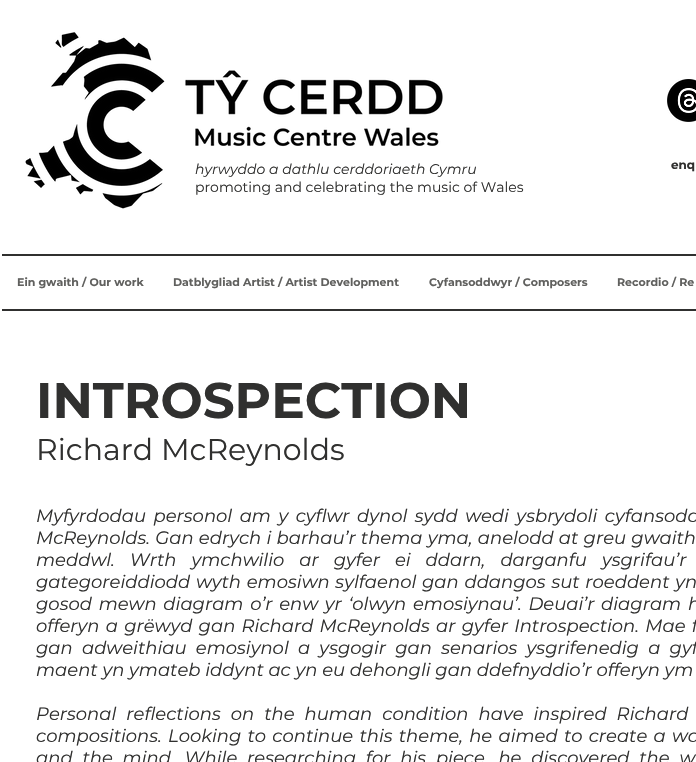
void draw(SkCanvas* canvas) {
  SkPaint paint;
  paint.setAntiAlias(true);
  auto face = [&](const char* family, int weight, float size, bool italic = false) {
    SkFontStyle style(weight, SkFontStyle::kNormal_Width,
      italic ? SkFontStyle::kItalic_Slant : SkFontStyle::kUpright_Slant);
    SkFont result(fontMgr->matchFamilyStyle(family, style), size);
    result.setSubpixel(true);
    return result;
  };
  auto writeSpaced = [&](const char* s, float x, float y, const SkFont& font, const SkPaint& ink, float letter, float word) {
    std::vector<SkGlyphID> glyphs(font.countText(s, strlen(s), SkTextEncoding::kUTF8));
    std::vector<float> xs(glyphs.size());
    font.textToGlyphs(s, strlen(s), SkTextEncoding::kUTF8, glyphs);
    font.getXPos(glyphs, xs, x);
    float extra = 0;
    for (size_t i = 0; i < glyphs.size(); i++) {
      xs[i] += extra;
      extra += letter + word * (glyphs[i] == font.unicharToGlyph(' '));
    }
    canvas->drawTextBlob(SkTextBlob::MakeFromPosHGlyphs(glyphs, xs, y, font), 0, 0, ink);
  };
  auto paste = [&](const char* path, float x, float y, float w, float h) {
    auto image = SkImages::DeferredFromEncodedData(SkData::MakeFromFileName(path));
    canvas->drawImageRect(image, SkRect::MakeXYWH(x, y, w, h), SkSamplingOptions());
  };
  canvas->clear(0xffffffff);
  paste("img/1.png", 25, 32, 140, 177);
  paste("img/2.png", 185, 70, 258, 77);
  paste("img/3.png", 667, 79, 29, 43);
  paint.setColor(0xff30302f);
  canvas->drawRect(SkRect::MakeXYWH(2, 254, 694, 2), paint);
  canvas->drawRect(SkRect::MakeXYWH(2, 309, 694, 2), paint);
  auto f0 = face("Montserrat", 400, 14, true);
  canvas->drawString("hyrwyddo a dathlu cerddoriaeth Cymru", 195, 174, f0, paint);
  auto f1 = face("Montserrat", 400, 14);
  canvas->drawString("promoting and celebrating the music of Wales", 195, 192, f1, paint);
  auto f2 = face("Montserrat", 700, 12);
  canvas->drawString("enq", 671, 169, f2, paint);
  auto f3 = face("Montserrat", 700, 11);
  paint.setColor(0xff60605e);
  {
    const struct { const char* s; float x, y; } items[] = {
      {"Ein gwaith / Our work", 17, 286},
      {"Datblygliad Artist / Artist Development", 173, 286},
      {"Cyfansoddwyr / Composers", 429, 286},
      {"Recordio / Re", 617, 286},
    };
    for (auto [s, x, y] : items) {
      canvas->drawString(s, x, y, f3, paint);
    }
  }
  auto f4 = face("Montserrat", 700, 50);
  paint.setColor(0xff30302f);
  canvas->drawString("INTROSPECTION", 36, 418, f4, paint);
  auto f5 = face("Montserrat", 400, 30);
  canvas->drawString("Richard McReynolds", 36, 460, f5, paint);
  auto f6 = face("Montserrat", 400, 18, true);
  writeSpaced("Myfyrdodau personol am y cyflwr dynol sydd wedi ysbrydoli cyfansodd", 36, 522, f6, paint, 0, 2.75f);
  writeSpaced("McReynolds. Gan edrych i barhau’r thema yma, anelodd at greu gwaith", 36, 544, f6, paint, 0, 0.5f);
  writeSpaced("meddwl. Wrth ymchwilio ar gyfer ei ddarn, darganfu ysgrifau’r", 36, 566, f6, paint, 0, 10.25f);
  writeSpaced("gategoreiddiodd wyth emosiwn sylfaenol gan ddangos sut roeddent yn", 36, 588, f6, paint, 0, 1);
  writeSpaced("gosod mewn diagram o’r enw yr ‘olwyn emosiynau’. Deuai’r diagram h", 36, 610, f6, paint, 0, 2);
  writeSpaced("offeryn a grëwyd gan Richard McReynolds ar gyfer Introspection. Mae f", 36, 632, f6, paint, 0, 1.5f);
  writeSpaced("gan adweithiau emosiynol a ysgogir gan senarios ysgrifenedig a gyf", 36, 654, f6, paint, 0, 4.5f);
  canvas->drawString("maent yn ymateb iddynt ac yn eu dehongli gan ddefnyddio’r offeryn ym", 36, 676, f6, paint);
  writeSpaced("Personal reflections on the human condition have inspired Richard", 36, 720, f6, paint, 0, 5.25f);
  writeSpaced("compositions. Looking to continue this theme, he aimed to create a wo", 36, 742, f6, paint, 0, 1.5f);
  writeSpaced("and the mind. While researching for his piece, he discovered the wr", 36, 764, f6, paint, 0, 5.1f);
}
